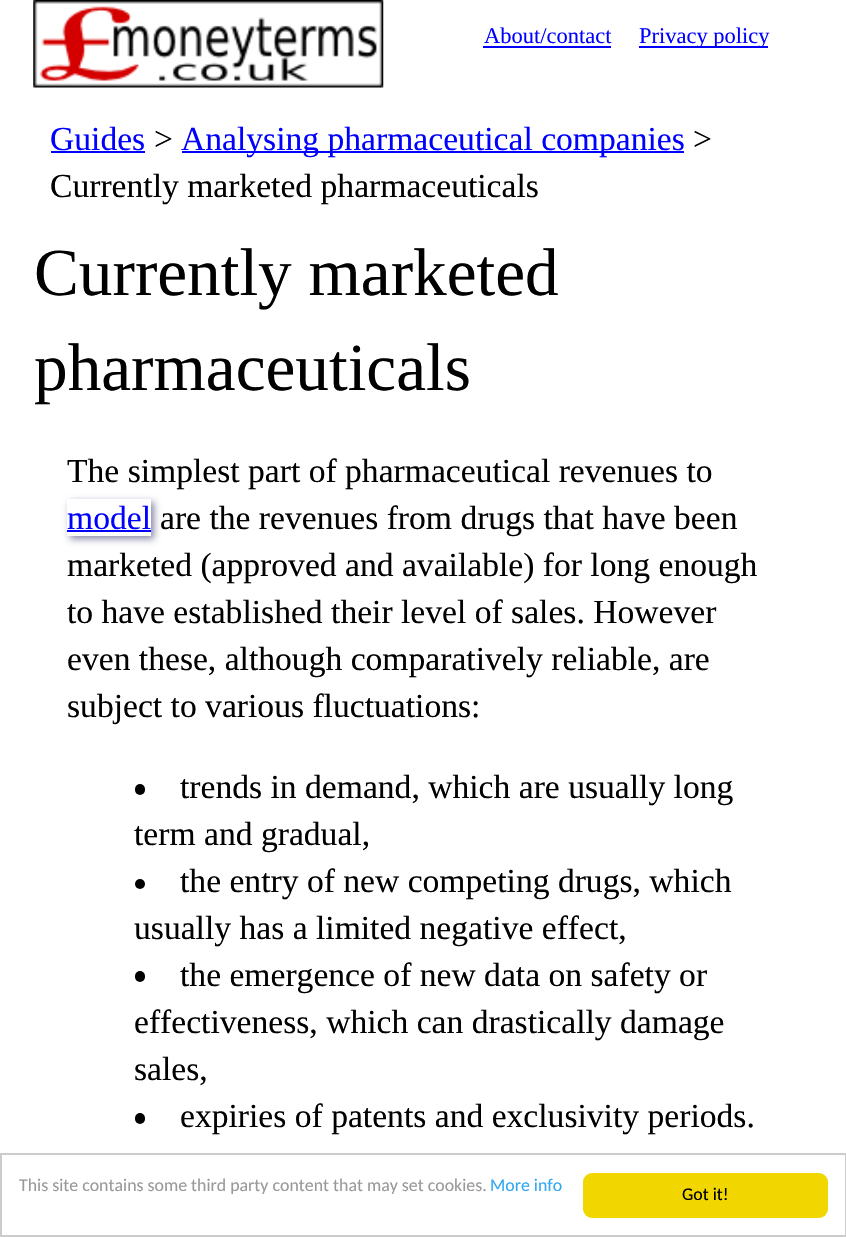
void draw(SkCanvas* canvas) {
  SkPaint paint;
  paint.setAntiAlias(true);
  auto face = [&](const char* family, int weight, float size, bool italic = false) {
    SkFontStyle style(weight, SkFontStyle::kNormal_Width,
      italic ? SkFontStyle::kItalic_Slant : SkFontStyle::kUpright_Slant);
    SkFont result(fontMgr->matchFamilyStyle(family, style), size);
    result.setSubpixel(true);
    return result;
  };
  auto paste = [&](const char* path, float x, float y, float w, float h) {
    auto image = SkImages::DeferredFromEncodedData(SkData::MakeFromFileName(path));
    canvas->drawImageRect(image, SkRect::MakeXYWH(x, y, w, h), SkSamplingOptions());
  };
  auto shape = [&](const char* data, bool evenOdd = false) {
    SkPath result = *SkParsePath::FromSVGString(data);
    if (evenOdd) result.setFillType(SkPathFillType::kEvenOdd);
    return result;
  };
  canvas->clear(0xffffffff);
  paste("img/1.png", 33, 0, 351, 88);
  {
    const struct { float x, y, w, h; SkColor color; } items[] = {
      {483, 46, 128, 2, 0xff0000ff},
      {639, 46, 129, 2, 0xff0000ff},
      {51, 151, 94, 2, 0xff0000ff},
      {182, 151, 502, 2, 0xff0000ff},
    };
    for (auto [x, y, w, h, color] : items) {
      paint.setColor(color);
      canvas->drawRect(SkRect::MakeXYWH(x, y, w, h), paint);
    }
  }
  canvas->save();
  canvas->clipPath(shape("M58 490H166V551H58ZM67 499H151V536H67Z", true), true);
  paint.setColor(0xff8888aa);
  paint.setMaskFilter(SkMaskFilter::MakeBlur(kNormal_SkBlurStyle, 3.5f));
  canvas->drawRect(SkRect::MakeXYWH(70, 502, 84, 37), paint);
  paint.setMaskFilter(nullptr);
  canvas->restore();
  paint.setColor(0xff0000ff);
  canvas->drawRect(SkRect::MakeXYWH(67, 530, 84, 2), paint);
  paint.setColor(0xff000000);
  canvas->drawRoundRect(SkRect::MakeXYWH(135, 784, 10, 11), 5, 5, paint);
  canvas->drawCircle(140, 884, 5, paint);
  canvas->drawRoundRect(SkRect::MakeXYWH(135, 971, 10, 11), 5, 5, paint);
  canvas->drawRoundRect(SkRect::MakeXYWH(135, 1113, 10, 11), 5, 5, paint);
  paint.setStroke(true);
  paint.setStrokeWidth(2);
  paint.setColor(0xffcccccc);
  canvas->drawRect(SkRect::MakeXYWH(1, 1154, 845, 82), paint);
  paint.setStroke(false);
  paint.setColor(0xfff1d600);
  canvas->drawRoundRect(SkRect::MakeXYWH(583, 1173, 245, 45), 9, 9, paint);
  auto f0 = face("Liberation Serif", 400, 22.5f);
  paint.setColor(0xff0000ff);
  canvas->drawString("About/contact", 484, 43, f0, paint);
  canvas->drawString("Privacy policy", 639, 43, f0, paint);
  auto f1 = face("Liberation Serif", 400, 33.6f);
  canvas->drawString("Guides", 50, 150, f1, paint);
  paint.setColor(0xff000000);
  canvas->drawString(">", 154, 150, f1, paint);
  paint.setColor(0xff0000ff);
  canvas->drawString("Analysing pharmaceutical companies", 181, 150, f1, paint);
  paint.setColor(0xff000000);
  canvas->drawString(">", 693, 150, f1, paint);
  canvas->drawString("Currently marketed pharmaceuticals", 50, 197, f1, paint);
  auto f2 = face("Liberation Serif", 400, 67.25f);
  canvas->drawString("Currently marketed", 34, 295, f2, paint);
  canvas->drawString("pharmaceuticals", 34, 390, f2, paint);
  canvas->drawString("The simplest part of pharmaceutical revenues to", 67, 482, f1, paint);
  paint.setColor(0xff0000ff);
  canvas->drawString("model", 67, 529, f1, paint);
  paint.setColor(0xff000000);
  {
    const struct { const char* s; float x, y; } items[] = {
      {"are the revenues from drugs that have been", 160, 529},
      {"marketed (approved and available) for long enough", 67, 576},
      {"to have established their level of sales. However", 67, 623},
      {"even these, although comparatively reliable, are", 67, 670},
      {"subject to various fluctuations:", 67, 717},
      {"trends in demand, which are usually long", 180, 798},
      {"term and gradual,", 134, 845},
      {"the entry of new competing drugs, which", 180, 892},
      {"usually has a limited negative effect,", 134, 939},
      {"the emergence of new data on safety or", 180, 986},
      {"effectiveness, which can drastically damage", 134, 1033},
      {"sales,", 134, 1080},
      {"expiries of patents and exclusivity periods.", 180, 1127},
    };
    for (auto [s, x, y] : items) {
      canvas->drawString(s, x, y, f1, paint);
    }
  }
  auto f3 = face("Carlito", 400, 17.85f);
  paint.setColor(0xff999999);
  canvas->drawString("This site contains some third party content that may set cookies.", 19, 1191, f3, paint);
  paint.setColor(0xff31a8f0);
  canvas->drawString("More info", 490, 1191, f3, paint);
  paint.setColor(0xff000000);
  canvas->drawString("Got it!", 682, 1200, f3, paint);
}
